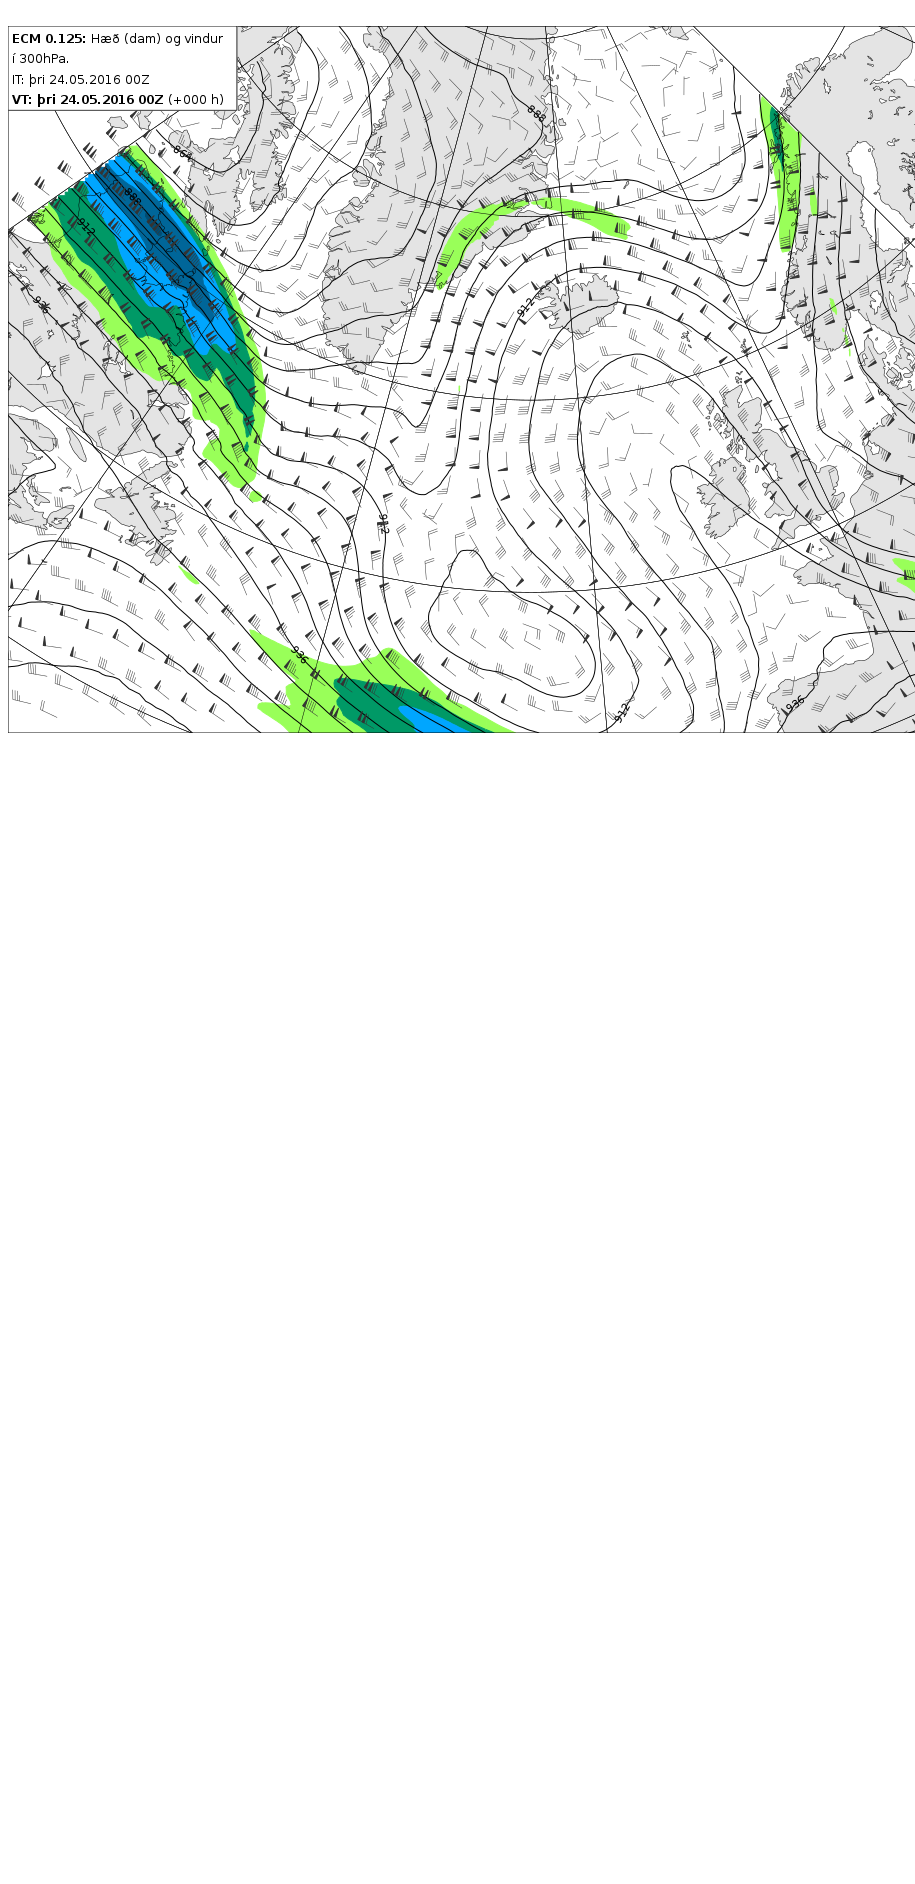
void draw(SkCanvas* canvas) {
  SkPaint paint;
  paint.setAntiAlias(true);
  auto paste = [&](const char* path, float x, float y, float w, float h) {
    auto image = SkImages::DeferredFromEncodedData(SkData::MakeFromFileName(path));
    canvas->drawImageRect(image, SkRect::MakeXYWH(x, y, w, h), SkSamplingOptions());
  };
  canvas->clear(0xffffffff);
  paste("img/1.png", 8, 26, 907, 707);
}
